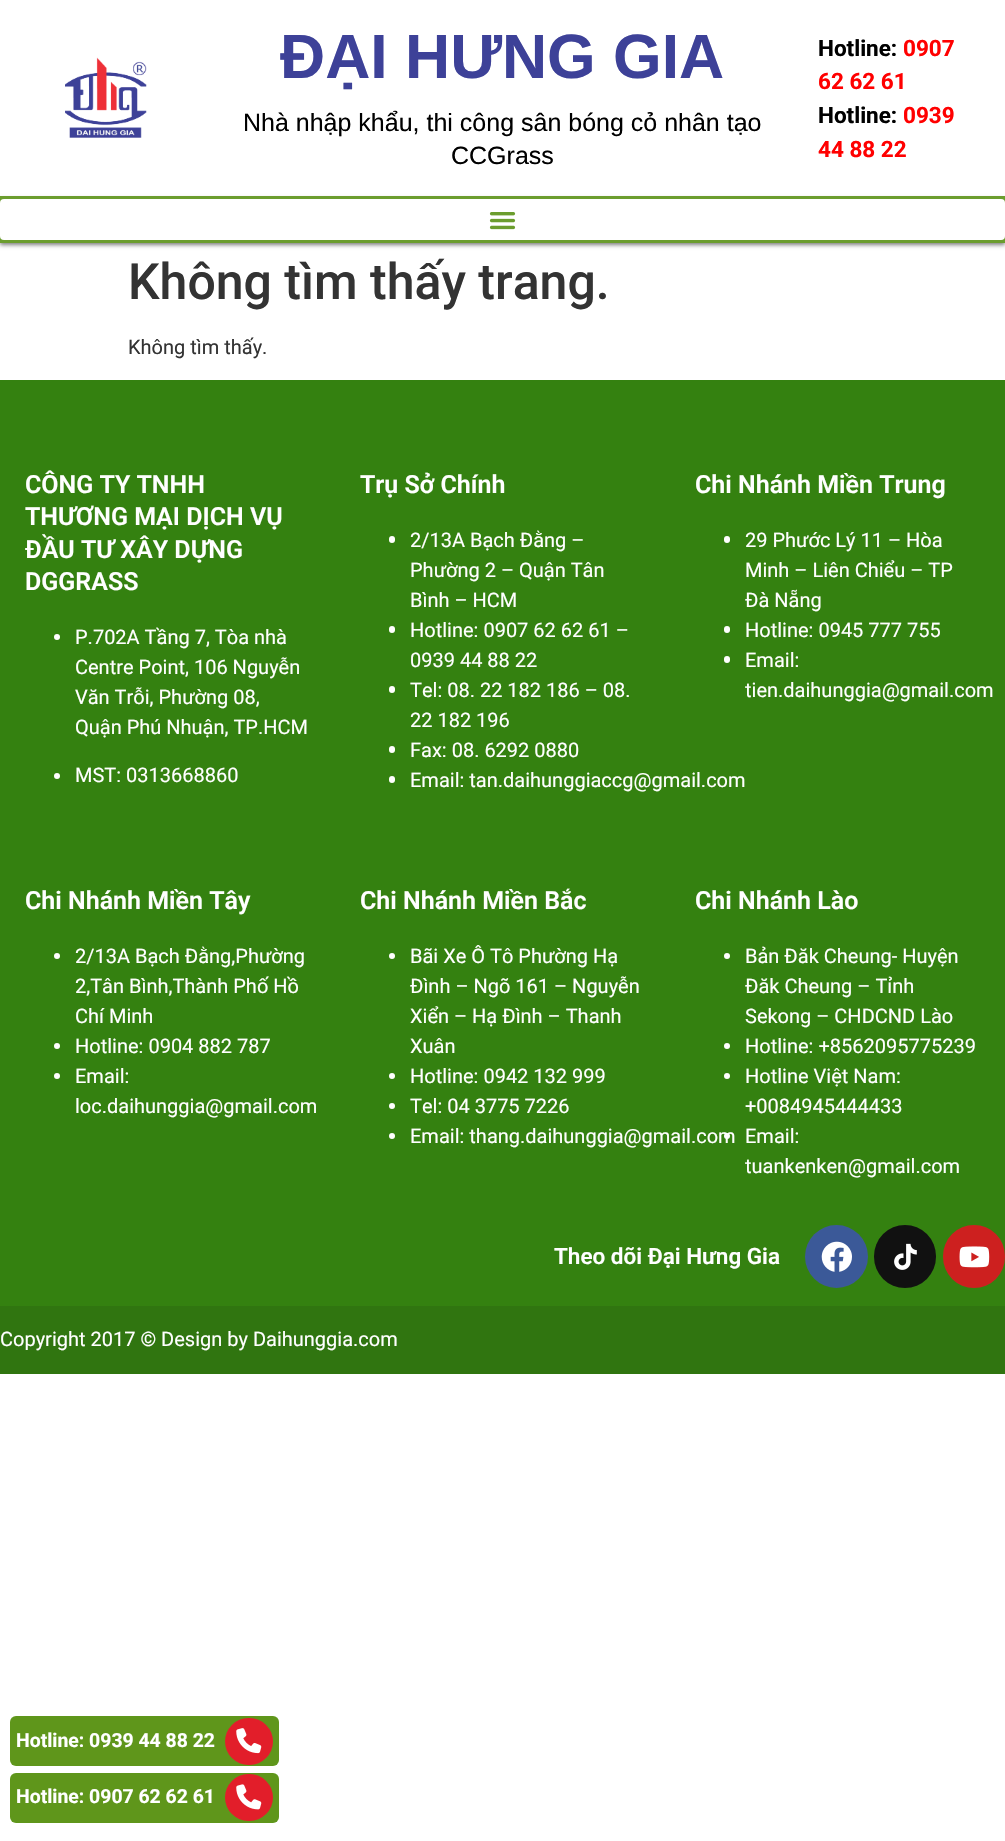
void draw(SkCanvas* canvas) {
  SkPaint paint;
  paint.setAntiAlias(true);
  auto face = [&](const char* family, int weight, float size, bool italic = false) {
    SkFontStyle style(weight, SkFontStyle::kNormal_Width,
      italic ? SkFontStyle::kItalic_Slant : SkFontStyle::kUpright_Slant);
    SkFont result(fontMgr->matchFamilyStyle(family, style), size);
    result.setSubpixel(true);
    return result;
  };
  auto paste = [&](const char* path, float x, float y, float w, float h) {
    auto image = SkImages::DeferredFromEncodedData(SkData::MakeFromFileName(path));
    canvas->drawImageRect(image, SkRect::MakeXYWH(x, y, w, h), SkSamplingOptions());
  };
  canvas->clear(0xffffffff);
  paste("img/1.png", 65, 57, 82, 81);
  paint.setColor(0x80000000);
  paint.setMaskFilter(SkMaskFilter::MakeBlur(kNormal_SkBlurStyle, 2));
  canvas->drawRect(SkRect::MakeXYWH(0, 199, 1005, 46), paint);
  paint.setMaskFilter(nullptr);
  paint.setColor(0xff6b9d2e);
  canvas->drawRect(SkRect::MakeXYWH(0, 196, 1005, 47), paint);
  paint.setColor(0xffffffff);
  canvas->drawRoundRect(SkRect::MakeXYWH(0, 199, 1005, 41), 4, 4, paint);
  paste("img/2.png", 489, 212, 27, 18);
  paint.setColor(0xff348110);
  canvas->drawRect(SkRect::MakeXYWH(0, 380, 1005, 926), paint);
  paint.setColor(0xffffffff);
  canvas->drawCircle(57, 637, 3, paint);
  canvas->drawCircle(57, 776, 3, paint);
  canvas->drawRoundRect(SkRect::MakeXYWH(389, 536, 6, 7), 3, 3, paint);
  canvas->drawRoundRect(SkRect::MakeXYWH(389, 626, 6, 7), 3, 3, paint);
  canvas->drawRoundRect(SkRect::MakeXYWH(389, 686, 6, 7), 3, 3, paint);
  canvas->drawRoundRect(SkRect::MakeXYWH(389, 746, 6, 7), 3, 3, paint);
  canvas->drawRoundRect(SkRect::MakeXYWH(389, 776, 6, 7), 3, 3, paint);
  canvas->drawRoundRect(SkRect::MakeXYWH(724, 536, 6, 7), 3, 3, paint);
  canvas->drawRoundRect(SkRect::MakeXYWH(724, 626, 6, 7), 3, 3, paint);
  canvas->drawRoundRect(SkRect::MakeXYWH(724, 656, 6, 7), 3, 3, paint);
  canvas->drawCircle(57, 956, 3, paint);
  canvas->drawCircle(57, 1046, 3, paint);
  canvas->drawCircle(57, 1076, 3, paint);
  canvas->drawCircle(392, 956, 3, paint);
  canvas->drawCircle(392, 1076, 3, paint);
  canvas->drawCircle(392, 1106, 3, paint);
  canvas->drawCircle(392, 1136, 3, paint);
  canvas->drawCircle(727, 956, 3, paint);
  canvas->drawCircle(727, 1046, 3, paint);
  canvas->drawCircle(727, 1076, 3, paint);
  canvas->drawCircle(727, 1136, 3, paint);
  paint.setColor(0xff3b5998);
  canvas->drawCircle(836.5f, 1256.5f, 31.5f, paint);
  paste("img/3.png", 821, 1241, 31, 31);
  paint.setColor(0xff111111);
  canvas->drawRoundRect(SkRect::MakeXYWH(874, 1225, 62, 63), 31, 31, paint);
  paste("img/4.png", 894, 1243, 23, 27);
  paint.setColor(0xffcd201f);
  canvas->drawRoundRect(SkRect::MakeXYWH(943, 1225, 62, 63), 31, 31, paint);
  paste("img/5.png", 959, 1246, 31, 22);
  paint.setColor(0xff307510);
  canvas->drawRect(SkRect::MakeXYWH(0, 1306, 1005, 68), paint);
  paint.setColor(0xff5f961b);
  canvas->drawRoundRect(SkRect::MakeXYWH(10, 1716, 269, 50), 6, 6, paint);
  paint.setColor(0xffe21e2a);
  canvas->drawRoundRect(SkRect::MakeXYWH(225, 1718, 48, 47), 23.5f, 23.5f, paint);
  paste("img/6.png", 236, 1728, 26, 26);
  paint.setColor(0xff5f961b);
  canvas->drawRoundRect(SkRect::MakeXYWH(10, 1773, 269, 50), 6, 6, paint);
  paint.setColor(0xffe21e2a);
  canvas->drawRoundRect(SkRect::MakeXYWH(225, 1774, 48, 47), 23.5f, 23.5f, paint);
  paste("img/7.png", 236, 1784, 26, 26);
  auto f0 = face("Liberation Sans", 700, 62.5f);
  paint.setColor(0xff3d4198);
  canvas->drawString("ĐẠI HƯNG GIA", 280, 78, f0, paint);
  auto f1 = face("Liberation Sans", 400, 25);
  paint.setColor(0xff000000);
  canvas->drawString("Nhà nhập khẩu, thi công sân bóng cỏ nhân tạo", 243, 131, f1, paint);
  canvas->drawString("CCGrass", 451, 164, f1, paint);
  auto f2 = face("Roboto", 700, 22.5f);
  canvas->drawString("Hotline:", 818, 56, f2, paint);
  paint.setColor(0xffff0000);
  canvas->drawString("0907", 903, 56, f2, paint);
  canvas->drawString("62 62 61", 818, 89, f2, paint);
  paint.setColor(0xff000000);
  canvas->drawString("Hotline:", 818, 123, f2, paint);
  paint.setColor(0xffff0000);
  canvas->drawString("0939", 903, 123, f2, paint);
  canvas->drawString("44 88 22", 818, 157, f2, paint);
  auto f3 = face("Roboto", 500, 50);
  paint.setColor(0xff333333);
  canvas->drawString("Không tìm thấy trang.", 128, 299, f3, paint);
  auto f4 = face("Roboto", 400, 20);
  canvas->drawString("Không tìm thấy.", 128, 354, f4, paint);
  auto f5 = face("Roboto", 600, 25);
  paint.setColor(0xffffffff);
  {
    const struct { const char* s; float x, y; } items[] = {
      {"CÔNG TY TNHH", 25, 493},
      {"THƯƠNG MẠI DỊCH VỤ", 25, 525},
      {"ĐẦU TƯ XÂY DỰNG", 25, 558},
      {"DGGRASS", 25, 590},
    };
    for (auto [s, x, y] : items) {
      canvas->drawString(s, x, y, f5, paint);
    }
  }
  {
    const struct { const char* s; float x, y; } items[] = {
      {"P.702A Tầng 7, Tòa nhà", 75, 644},
      {"Centre Point, 106 Nguyễn", 75, 674},
      {"Văn Trỗi, Phường 08,", 75, 704},
      {"Quận Phú Nhuận, TP.HCM", 75, 734},
      {"MST: 0313668860", 75, 782},
    };
    for (auto [s, x, y] : items) {
      canvas->drawString(s, x, y, f4, paint);
    }
  }
  canvas->drawString("Trụ Sở Chính", 360, 493, f5, paint);
  {
    const struct { const char* s; float x, y; } items[] = {
      {"2/13A Bạch Đằng –", 410, 547},
      {"Phường 2 – Quận Tân", 410, 577},
      {"Bình – HCM", 410, 607},
      {"Hotline: 0907 62 62 61 –", 410, 637},
      {"0939 44 88 22", 410, 667},
      {"Tel: 08. 22 182 186 – 08.", 410, 697},
      {"22 182 196", 410, 727},
      {"Fax: 08. 6292 0880", 410, 757},
      {"Email: tan.daihunggiaccg@gmail.com", 410, 787},
    };
    for (auto [s, x, y] : items) {
      canvas->drawString(s, x, y, f4, paint);
    }
  }
  canvas->drawString("Chi Nhánh Miền Trung", 695, 493, f5, paint);
  {
    const struct { const char* s; float x, y; } items[] = {
      {"29 Phước Lý 11 – Hòa", 745, 547},
      {"Minh – Liên Chiểu – TP", 745, 577},
      {"Đà Nẵng", 745, 607},
      {"Hotline: 0945 777 755", 745, 637},
      {"Email:", 745, 667},
      {"tien.daihunggia@gmail.com", 745, 697},
    };
    for (auto [s, x, y] : items) {
      canvas->drawString(s, x, y, f4, paint);
    }
  }
  canvas->drawString("Chi Nhánh Miền Tây", 25, 909, f5, paint);
  {
    const struct { const char* s; float x, y; } items[] = {
      {"2/13A Bạch Đằng,Phường", 75, 963},
      {"2,Tân Bình,Thành Phố Hồ", 75, 993},
      {"Chí Minh", 75, 1023},
      {"Hotline: 0904 882 787", 75, 1053},
      {"Email:", 75, 1083},
      {"loc.daihunggia@gmail.com", 75, 1113},
    };
    for (auto [s, x, y] : items) {
      canvas->drawString(s, x, y, f4, paint);
    }
  }
  canvas->drawString("Chi Nhánh Miền Bắc", 360, 909, f5, paint);
  {
    const struct { const char* s; float x, y; } items[] = {
      {"Bãi Xe Ô Tô Phường Hạ", 410, 963},
      {"Đình – Ngõ 161 – Nguyễn", 410, 993},
      {"Xiển – Hạ Đình – Thanh", 410, 1023},
      {"Xuân", 410, 1053},
      {"Hotline: 0942 132 999", 410, 1083},
      {"Tel: 04 3775 7226", 410, 1113},
      {"Email: thang.daihunggia@gmail.com", 410, 1143},
    };
    for (auto [s, x, y] : items) {
      canvas->drawString(s, x, y, f4, paint);
    }
  }
  canvas->drawString("Chi Nhánh Lào", 695, 909, f5, paint);
  {
    const struct { const char* s; float x, y; } items[] = {
      {"Bản Đăk Cheung- Huyện", 745, 963},
      {"Đăk Cheung – Tỉnh", 745, 993},
      {"Sekong – CHDCND Lào", 745, 1023},
      {"Hotline: +8562095775239", 745, 1053},
      {"Hotline Việt Nam:", 745, 1083},
      {"+0084945444433", 745, 1113},
      {"Email:", 745, 1143},
      {"tuankenken@gmail.com", 745, 1173},
    };
    for (auto [s, x, y] : items) {
      canvas->drawString(s, x, y, f4, paint);
    }
  }
  auto f6 = face("Roboto", 600, 22.5f);
  canvas->drawString("Theo dõi Đại Hưng Gia", 554, 1264, f6, paint);
  canvas->drawString("Copyright 2017 © Design by Daihunggia.com", 0, 1346, f4, paint);
  auto f7 = face("Roboto", 700, 19.4f);
  canvas->drawString("Hotline: 0939 44 88 22", 16, 1747, f7, paint);
  canvas->drawString("Hotline: 0907 62 62 61", 16, 1803, f7, paint);
}
